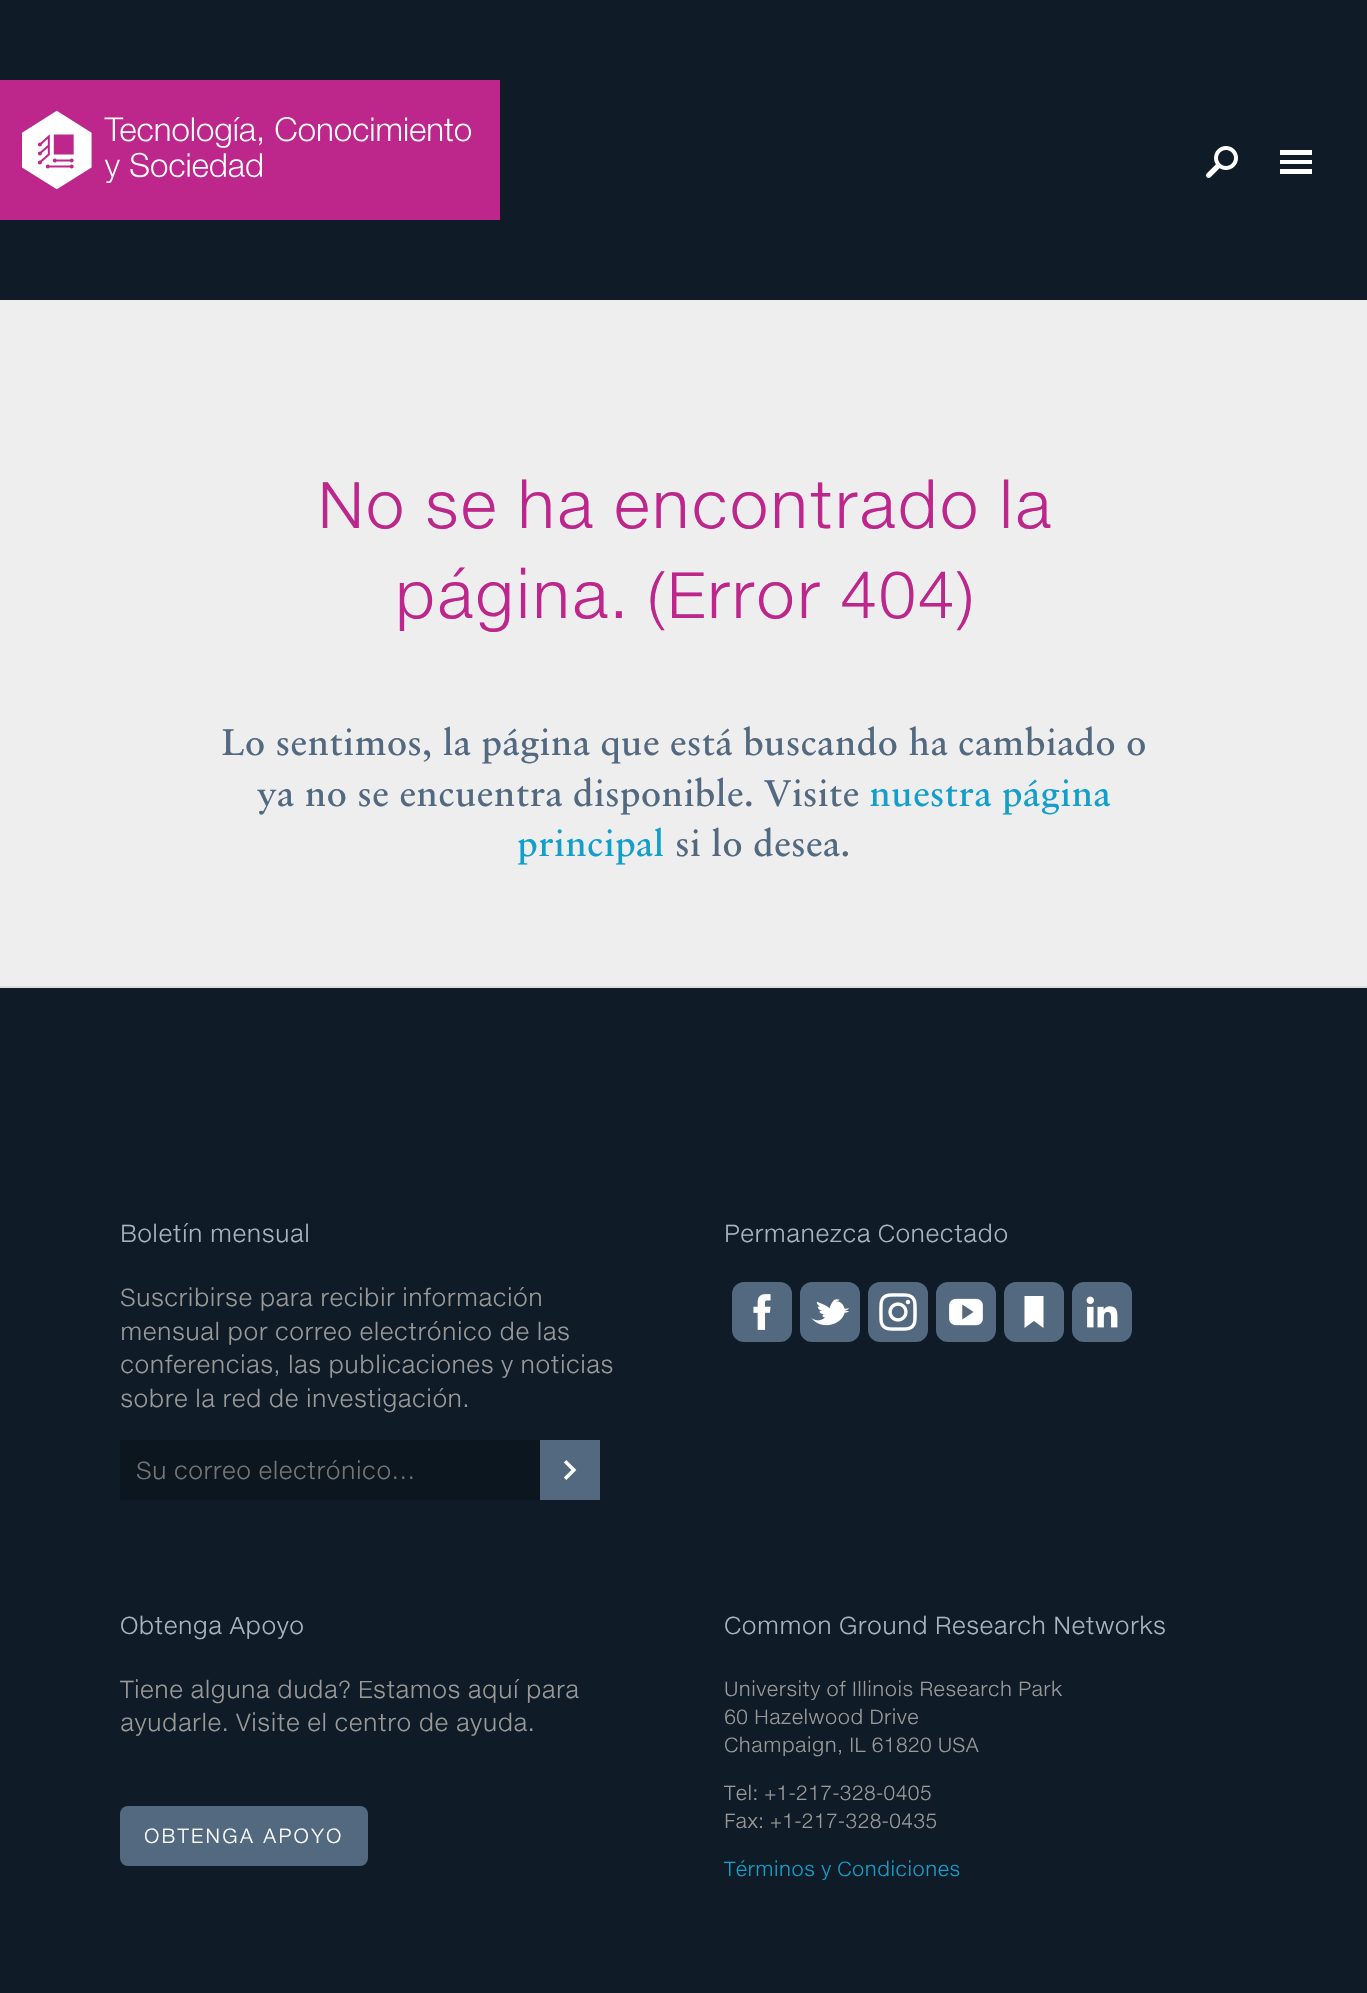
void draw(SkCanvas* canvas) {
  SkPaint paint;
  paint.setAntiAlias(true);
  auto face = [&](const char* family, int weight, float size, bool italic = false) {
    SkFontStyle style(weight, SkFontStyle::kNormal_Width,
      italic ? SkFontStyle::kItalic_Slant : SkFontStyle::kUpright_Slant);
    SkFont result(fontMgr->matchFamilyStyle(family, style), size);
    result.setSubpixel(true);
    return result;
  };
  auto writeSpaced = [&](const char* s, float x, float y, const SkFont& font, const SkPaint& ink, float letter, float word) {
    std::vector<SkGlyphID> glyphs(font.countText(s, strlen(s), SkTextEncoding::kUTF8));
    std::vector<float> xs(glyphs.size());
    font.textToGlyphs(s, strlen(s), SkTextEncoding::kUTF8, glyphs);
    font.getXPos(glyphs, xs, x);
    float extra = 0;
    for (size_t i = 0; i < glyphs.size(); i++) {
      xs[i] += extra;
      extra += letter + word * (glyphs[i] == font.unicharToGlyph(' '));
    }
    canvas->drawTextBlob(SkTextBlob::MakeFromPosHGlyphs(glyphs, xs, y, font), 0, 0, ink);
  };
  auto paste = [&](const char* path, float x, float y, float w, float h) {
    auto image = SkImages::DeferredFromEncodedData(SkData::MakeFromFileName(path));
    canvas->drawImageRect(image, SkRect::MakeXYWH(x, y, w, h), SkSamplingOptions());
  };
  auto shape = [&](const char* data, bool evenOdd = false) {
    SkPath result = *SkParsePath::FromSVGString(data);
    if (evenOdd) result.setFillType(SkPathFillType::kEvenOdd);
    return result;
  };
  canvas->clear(0xffeeeeee);
  paint.setColor(0xff0f1b26);
  canvas->drawRect(SkRect::MakeXYWH(0, 0, 1367, 300), paint);
  paint.setColor(0xffbd268b);
  canvas->drawRect(SkRect::MakeXYWH(0, 80, 500, 140), paint);
  paste("img/1.png", 22, 110, 450, 80);
  paste("img/2.png", 1206, 146, 32, 32);
  {
    const struct { float x, y, w, h; SkColor color; } items[] = {
      {1280, 150, 32, 5, 0xffffffff},
      {1280, 160, 32, 4, 0xffffffff},
      {1280, 169, 32, 5, 0xffffffff},
      {0, 986, 1367, 2, 0xffdddddd},
      {0, 988, 1367, 1005, 0xff0f1b26},
      {120, 1440, 420, 60, 0xff0c161e},
      {540, 1440, 60, 60, 0xff536980},
    };
    for (auto [x, y, w, h, color] : items) {
      paint.setColor(color);
      canvas->drawRect(SkRect::MakeXYWH(x, y, w, h), paint);
    }
  }
  paste("img/3.png", 563, 1460, 14, 20);
  canvas->drawRoundRect(SkRect::MakeXYWH(732, 1282, 60, 60), 12, 12, paint);
  paste("img/4.png", 753, 1294, 18, 36);
  canvas->drawRoundRect(SkRect::MakeXYWH(800, 1282, 60, 60), 12, 12, paint);
  paste("img/5.png", 811, 1298, 38, 28);
  canvas->drawRoundRect(SkRect::MakeXYWH(868, 1282, 60, 60), 12, 12, paint);
  paste("img/6.png", 879, 1293, 38, 38);
  canvas->drawRoundRect(SkRect::MakeXYWH(936, 1282, 60, 60), 12, 12, paint);
  paste("img/7.png", 949, 1298, 34, 28);
  canvas->drawRoundRect(SkRect::MakeXYWH(1004, 1282, 60, 60), 12, 12, paint);
  paint.setColor(0xffffffff);
  canvas->drawPath(shape("M1043.5 1328L1034 1321L1024.5 1328V1296H1043.5Z"), paint);
  paint.setColor(0xff536980);
  canvas->drawRoundRect(SkRect::MakeXYWH(1072, 1282, 60, 60), 12, 12, paint);
  paste("img/8.png", 1086, 1296, 32, 32);
  canvas->drawRoundRect(SkRect::MakeXYWH(120, 1806, 248, 60), 8, 8, paint);
  auto f0 = face("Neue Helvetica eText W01", 300, 64);
  paint.setColor(0xffbd268b);
  canvas->drawString("No se ha encontrado la", 317, 528, f0, paint);
  canvas->drawString("página. (Error 404)", 394, 618, f0, paint);
  auto f1 = face("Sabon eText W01", 400, 36);
  paint.setColor(0xff536980);
  canvas->drawString("Lo sentimos, la página que está buscando ha cambiado o", 221, 755, f1, paint);
  canvas->drawString("ya no se encuentra disponible. Visite", 257, 806, f1, paint);
  paint.setColor(0xff149ecc);
  canvas->drawString("nuestra página", 869, 806, f1, paint);
  canvas->drawString("principal", 517, 856, f1, paint);
  paint.setColor(0xff536980);
  canvas->drawString("si lo desea.", 675, 856, f1, paint);
  auto f2 = face("Neue Helvetica eText W01", 300, 24);
  paint.setColor(0xffa9b4c0);
  canvas->drawString("Boletín mensual", 120, 1242, f2, paint);
  paint.setColor(0xff999999);
  {
    const struct { const char* s; float x, y; } items[] = {
      {"Suscribirse para recibir información", 120, 1306},
      {"mensual por correo electrónico de las", 120, 1340},
      {"conferencias, las publicaciones y noticias", 120, 1373},
      {"sobre la red de investigación.", 120, 1407},
    };
    for (auto [s, x, y] : items) {
      canvas->drawString(s, x, y, f2, paint);
    }
  }
  paint.setColor(0xff757575);
  canvas->drawString("Su correo electrónico…", 136, 1479, f2, paint);
  paint.setColor(0xffa9b4c0);
  canvas->drawString("Permanezca Conectado", 724, 1242, f2, paint);
  canvas->drawString("Obtenga Apoyo", 120, 1634, f2, paint);
  paint.setColor(0xff999999);
  canvas->drawString("Tiene alguna duda? Estamos aquí para", 120, 1698, f2, paint);
  canvas->drawString("ayudarle. Visite el centro de ayuda.", 120, 1731, f2, paint);
  auto f3 = face("Neue Helvetica eText W01", 300, 20);
  paint.setColor(0xffffffff);
  writeSpaced("OBTENGA APOYO", 144, 1843, f3, paint, 2, 0);
  paint.setColor(0xffa9b4c0);
  canvas->drawString("Common Ground Research Networks", 724, 1634, f2, paint);
  paint.setColor(0xff999999);
  {
    const struct { const char* s; float x, y; } items[] = {
      {"University of Illinois Research Park", 724, 1696},
      {"60 Hazelwood Drive", 724, 1724},
      {"Champaign, IL 61820 USA", 724, 1752},
      {"Tel: +1-217-328-0405", 724, 1800},
      {"Fax: +1-217-328-0435", 724, 1828},
    };
    for (auto [s, x, y] : items) {
      canvas->drawString(s, x, y, f3, paint);
    }
  }
  paint.setColor(0xff149ecc);
  canvas->drawString("Términos y Condiciones", 724, 1876, f3, paint);
}
